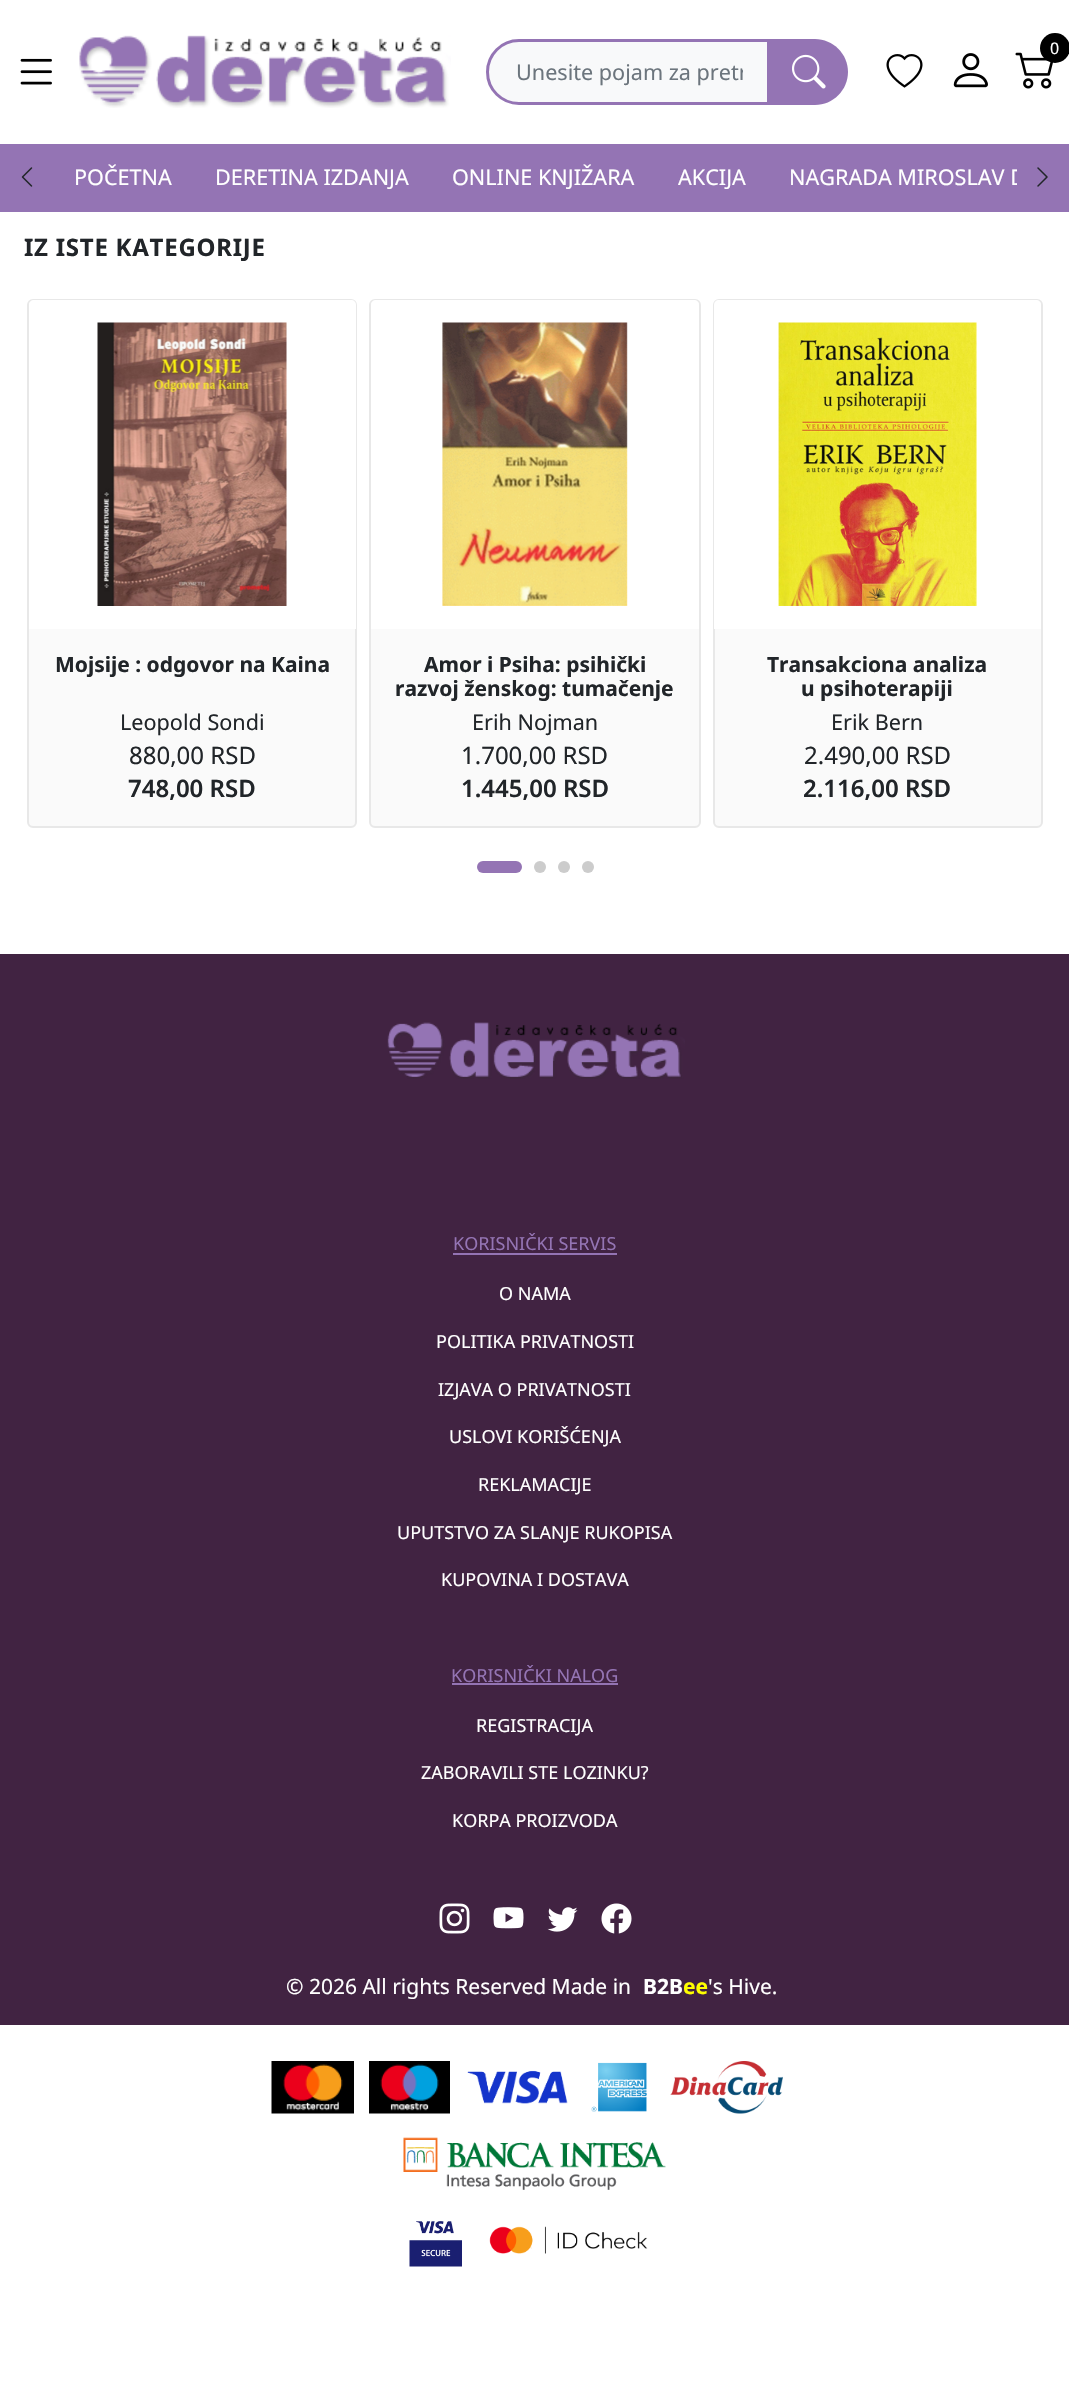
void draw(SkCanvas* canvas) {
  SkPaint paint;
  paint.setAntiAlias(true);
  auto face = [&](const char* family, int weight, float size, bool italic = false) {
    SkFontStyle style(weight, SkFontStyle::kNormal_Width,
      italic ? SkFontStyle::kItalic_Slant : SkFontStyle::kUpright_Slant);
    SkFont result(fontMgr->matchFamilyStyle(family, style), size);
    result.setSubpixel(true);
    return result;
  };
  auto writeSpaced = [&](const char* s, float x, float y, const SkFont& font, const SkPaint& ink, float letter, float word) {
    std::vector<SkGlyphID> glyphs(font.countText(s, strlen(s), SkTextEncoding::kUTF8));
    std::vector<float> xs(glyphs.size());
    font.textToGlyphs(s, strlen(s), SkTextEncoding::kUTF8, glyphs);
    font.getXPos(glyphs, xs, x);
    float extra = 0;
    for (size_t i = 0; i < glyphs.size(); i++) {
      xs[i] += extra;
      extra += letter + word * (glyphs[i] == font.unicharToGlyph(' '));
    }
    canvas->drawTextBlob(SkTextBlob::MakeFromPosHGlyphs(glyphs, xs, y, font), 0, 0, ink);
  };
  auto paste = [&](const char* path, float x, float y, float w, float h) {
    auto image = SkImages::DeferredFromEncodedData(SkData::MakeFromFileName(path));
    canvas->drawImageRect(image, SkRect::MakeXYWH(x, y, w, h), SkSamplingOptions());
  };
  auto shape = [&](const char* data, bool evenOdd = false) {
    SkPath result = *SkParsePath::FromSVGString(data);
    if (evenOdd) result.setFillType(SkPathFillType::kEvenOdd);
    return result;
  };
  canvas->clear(0xffffffff);
  paste("img/1.png", 79, 35, 372, 73);
  paste("img/2.png", 1015, 52, 38, 37);
  paint.setColor(0xff000000);
  canvas->drawCircle(1055, 48, 15, paint);
  paste("img/3.png", 20, 58, 32, 27);
  paint.setColor(0xfff8f9fa);
  canvas->drawPath(shape("M519 40.5H768.5V103.5H519C501.5 103.5 487.5 89.5 487.5 72C487.5 54.5 501.5 40.5 519 40.5Z"), paint);
  paint.setStroke(true);
  paint.setStrokeWidth(3);
  paint.setColor(0xff9474b4);
  canvas->drawPath(shape("M519 40.5H768.5V103.5H519C501.5 103.5 487.5 89.5 487.5 72C487.5 54.5 501.5 40.5 519 40.5Z"), paint);
  paint.setStroke(false);
  canvas->drawPath(shape("M770 39H815C833 39 848 54 848 72C848 90 833 105 815 105H770Z"), paint);
  paste("img/4.png", 792, 54, 34, 35);
  paste("img/5.png", 886, 54, 37, 34);
  paste("img/6.png", 953, 53, 35, 35);
  canvas->drawRect(SkRect::MakeXYWH(0, 144, 1069, 68), paint);
  paste("img/7.png", 21, 167, 12, 20);
  paste("img/8.png", 1037, 167, 11, 20);
  paint.setColor(0xfffafafa);
  canvas->drawRoundRect(SkRect::MakeXYWH(28, 300, 328, 527), 5, 5, paint);
  paint.setStroke(true);
  paint.setStrokeWidth(2);
  paint.setColor(0xffe8e8e8);
  canvas->drawRoundRect(SkRect::MakeXYWH(28, 300, 328, 527), 5, 5, paint);
  paint.setStroke(false);
  paint.setColor(0xffffffff);
  canvas->drawPath(shape("M34 300H351C354 300 356 302 356 305V629H29V305C29 302 31 300 34 300Z"), paint);
  paste("img/9.png", 97, 322, 190, 284);
  paint.setColor(0xfffafafa);
  canvas->drawRoundRect(SkRect::MakeXYWH(370, 300, 330, 527), 5, 5, paint);
  paint.setStroke(true);
  paint.setColor(0xffe8e8e8);
  canvas->drawRoundRect(SkRect::MakeXYWH(370, 300, 330, 527), 5, 5, paint);
  paint.setStroke(false);
  paint.setColor(0xffffffff);
  canvas->drawPath(shape("M376 300H694C697 300 699 302 699 305V629H371V305C371 302 373 300 376 300Z"), paint);
  paste("img/10.png", 442, 322, 186, 284);
  paint.setColor(0xfffafafa);
  canvas->drawRoundRect(SkRect::MakeXYWH(714, 300, 328, 527), 5, 5, paint);
  paint.setStroke(true);
  paint.setColor(0xffe8e8e8);
  canvas->drawRoundRect(SkRect::MakeXYWH(714, 300, 328, 527), 5, 5, paint);
  paint.setStroke(false);
  paint.setColor(0xffffffff);
  canvas->drawPath(shape("M719 300H1036C1039 300 1041 302 1041 305V629H714V305C714 302 716 300 719 300Z"), paint);
  paste("img/11.png", 778, 322, 199, 284);
  paint.setColor(0xff9474b4);
  canvas->drawRoundRect(SkRect::MakeXYWH(477, 861, 45, 12), 6, 6, paint);
  paint.setColor(0xffcccccc);
  canvas->drawCircle(540, 867, 6, paint);
  canvas->drawCircle(564, 867, 6, paint);
  canvas->drawCircle(588, 867, 6, paint);
  paint.setColor(0xff412342);
  canvas->drawRect(SkRect::MakeXYWH(0, 954, 1069, 1071), paint);
  paste("img/12.png", 387, 1022, 298, 57);
  paint.setColor(0xff9474b4);
  canvas->drawRect(SkRect::MakeXYWH(453, 1253, 164, 2), paint);
  canvas->drawRect(SkRect::MakeXYWH(452, 1683, 166, 2), paint);
  paste("img/13.png", 439, 1903, 31, 31);
  paste("img/14.png", 493, 1907, 31, 22);
  paste("img/15.png", 547, 1907, 31, 25);
  paste("img/16.png", 601, 1903, 31, 31);
  paste("img/17.png", 271, 2061, 83, 53);
  paste("img/18.png", 369, 2061, 81, 53);
  paste("img/19.png", 467, 2070, 101, 34);
  paste("img/20.png", 591, 2062, 56, 50);
  paste("img/21.png", 670, 2061, 113, 53);
  paste("img/22.png", 403, 2137, 263, 53);
  paste("img/23.png", 409, 2221, 53, 46);
  paste("img/24.png", 489, 2226, 159, 28);
  auto f0 = face("Noto Sans", 400, 16);
  paint.setColor(0xffffffff);
  canvas->drawString("0", 1050, 54, f0, paint);
  canvas->save();
  canvas->clipRect(SkRect::MakeXYWH(516, 57, 227, 29));
  auto f1 = face("Noto Sans", 400, 21.6f);
  paint.setColor(0xff6c757d);
  canvas->drawString("Unesite pojam za pretr", 516, 80, f1, paint);
  canvas->restore();
  paint.setColor(0xffffffff);
  {
    const struct { const char* s; float x, y; } items[] = {
      {"POČETNA", 74, 185},
      {"DERETINA IZDANJA", 215, 185},
      {"ONLINE KNJIŽARA", 452, 185},
      {"AKCIJA", 678, 185},
    };
    for (auto [s, x, y] : items) {
      canvas->drawString(s, x, y, f1, paint);
    }
  }
  canvas->save();
  canvas->clipRect(SkRect::MakeXYWH(53, 144, 964, 68));
  canvas->drawString("NAGRADA MIROSLAV D", 789, 185, f1, paint);
  canvas->restore();
  auto f2 = face("Noto Sans", 700, 24);
  paint.setColor(0xff212529);
  writeSpaced("IZ ISTE KATEGORIJE", 24, 256, f2, paint, 0.75f, 0);
  auto f3 = face("Noto Sans", 700, 21);
  canvas->drawString("Mojsije : odgovor na Kaina", 55, 672, f3, paint);
  canvas->drawString("Leopold Sondi", 120, 730, f1, paint);
  auto f4 = face("Noto Sans", 400, 24);
  canvas->drawString("880,00 RSD", 129, 764, f4, paint);
  auto f5 = face("Noto Sans", 600, 24);
  canvas->drawString("748,00 RSD", 128, 797, f5, paint);
  canvas->drawString("Amor i Psiha: psihički", 424, 672, f3, paint);
  canvas->drawString("razvoj ženskog: tumačenje", 395, 696, f3, paint);
  canvas->drawString("Erih Nojman", 472, 730, f1, paint);
  canvas->drawString("1.700,00 RSD", 461, 764, f4, paint);
  canvas->drawString("1.445,00 RSD", 461, 797, f5, paint);
  canvas->drawString("Тransakciona analiza", 767, 672, f3, paint);
  canvas->drawString("u psihoterapiji", 801, 696, f3, paint);
  canvas->drawString("Erik Bern", 831, 730, f1, paint);
  canvas->drawString("2.490,00 RSD", 804, 764, f4, paint);
  canvas->drawString("2.116,00 RSD", 803, 797, f5, paint);
  auto f6 = face("Noto Sans", 400, 18);
  paint.setColor(0xff9474b4);
  canvas->drawString("KORISNIČKI SERVIS", 453, 1250, f6, paint);
  paint.setColor(0xffffffff);
  {
    const struct { const char* s; float x, y; } items[] = {
      {"O NAMA", 499, 1300},
      {"POLITIKA PRIVATNOSTI", 436, 1348},
      {"IZJAVA O PRIVATNOSTI", 438, 1396},
      {"USLOVI KORIŠĆENJA", 449, 1443},
      {"REKLAMACIJE", 478, 1491},
      {"UPUTSTVO ZA SLANJE RUKOPISA", 397, 1539},
      {"KUPOVINA I DOSTAVA", 441, 1586},
    };
    for (auto [s, x, y] : items) {
      canvas->drawString(s, x, y, f6, paint);
    }
  }
  paint.setColor(0xff9474b4);
  canvas->drawString("KORISNIČKI NALOG", 451, 1682, f6, paint);
  paint.setColor(0xffffffff);
  {
    const struct { const char* s; float x, y; } items[] = {
      {"REGISTRACIJA", 476, 1732},
      {"ZABORAVILI STE LOZINKU?", 421, 1779},
      {"KORPA PROIZVODA", 452, 1827},
    };
    for (auto [s, x, y] : items) {
      canvas->drawString(s, x, y, f6, paint);
    }
  }
  auto f7 = face("Noto Sans", 400, 21);
  canvas->drawString("© 2026 All rights Reserved Made in", 286, 1994, f7, paint);
  canvas->drawString("B2B", 643, 1994, f3, paint);
  paint.setColor(0xffffff00);
  canvas->drawString("ee", 683, 1994, f3, paint);
  paint.setColor(0xffffffff);
  canvas->drawString("'s Hive.", 708, 1994, f7, paint);
}
